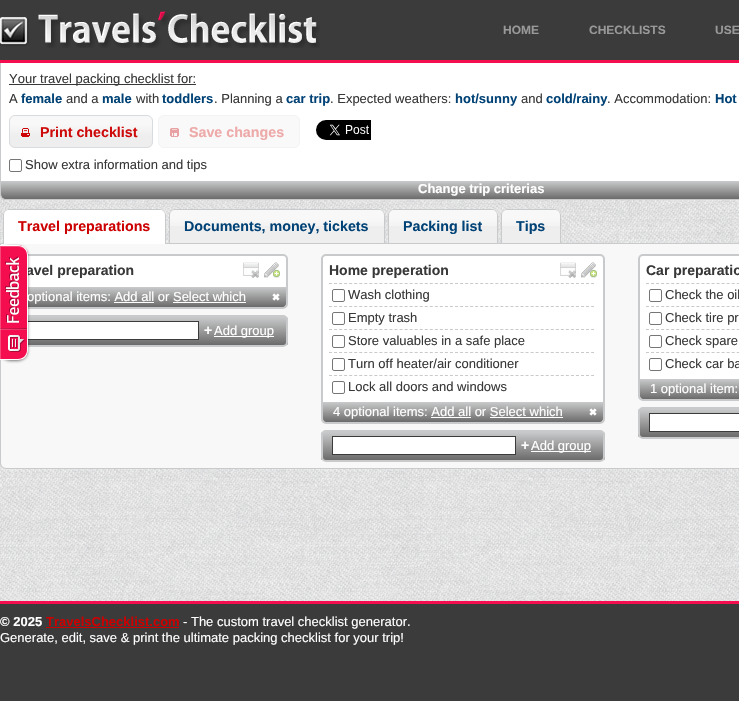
void draw(SkCanvas* canvas) {
  SkPaint paint;
  paint.setAntiAlias(true);
  auto face = [&](const char* family, int weight, float size, bool italic = false) {
    SkFontStyle style(weight, SkFontStyle::kNormal_Width,
      italic ? SkFontStyle::kItalic_Slant : SkFontStyle::kUpright_Slant);
    SkFont result(fontMgr->matchFamilyStyle(family, style), size);
    result.setSubpixel(true);
    return result;
  };
  auto paste = [&](const char* path, float x, float y, float w, float h) {
    auto image = SkImages::DeferredFromEncodedData(SkData::MakeFromFileName(path));
    canvas->drawImageRect(image, SkRect::MakeXYWH(x, y, w, h), SkSamplingOptions());
  };
  auto shape = [&](const char* data, bool evenOdd = false) {
    SkPath result = *SkParsePath::FromSVGString(data);
    if (evenOdd) result.setFillType(SkPathFillType::kEvenOdd);
    return result;
  };
  canvas->clear(0xffffffff);
  paste("img/1.png", 0, 195, 739, 406);
  paint.setColor(0xff3b3b3b);
  canvas->drawRect(SkRect::MakeXYWH(0, 0, 739, 60), paint);
  paint.setColor(0xfff40d4f);
  canvas->drawRect(SkRect::MakeXYWH(0, 60, 739, 3), paint);
  paste("img/2.png", 0, 11, 320, 37);
  paint.setColor(0xffffffff);
  canvas->drawPath(shape("M0 63H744V195C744 198 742 200 739 200H5C2 200 0 198 0 195Z"), paint);
  paint.setColor(0xffc9cacb);
  canvas->drawPath(shape("M0 63H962V195C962 198 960 200 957 200H5C2 200 0 198 0 195ZM1 63H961V195C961 197 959 199 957 199H5C3 199 1 197 1 195Z", true), paint);
  paint.setColor(0xff383838);
  canvas->drawRect(SkRect::MakeXYWH(9, 84, 187, 1), paint);
  paste("img/3.png", 9, 115, 144, 32);
  paint.setStroke(true);
  paint.setStrokeWidth(1);
  paint.setColor(0xffd8dcdf);
  canvas->drawRoundRect(SkRect::MakeXYWH(9.5f, 115.5f, 143, 32), 5.5f, 5.5f, paint);
  paste("img/4.png", 21, 128, 9, 9);
  paint.setStroke(false);
  paint.setColor(0xfff9f9f9);
  canvas->drawRoundRect(SkRect::MakeXYWH(158.5f, 115.5f, 141, 32), 5.5f, 5.5f, paint);
  paint.setStroke(true);
  paint.setColor(0xfff1f3f4);
  canvas->drawRoundRect(SkRect::MakeXYWH(158.5f, 115.5f, 141, 32), 5.5f, 5.5f, paint);
  paste("img/5.png", 170, 128, 9, 9);
  paste("img/6.png", 316, 120, 55, 20);
  paint.setColor(0xff767676);
  canvas->drawRoundRect(SkRect::MakeXYWH(9.5f, 159.5f, 12, 12), 1.5f, 1.5f, paint);
  paint.setStroke(false);
  {
    const SkColor colors[] = {0xffc9cacb, 0xff6c6b6b};
    const float stops[] = {0, 1};
    const SkPoint ends[] = {{1, 181}, {1, 199}};
    paint.setShader(SkGradientShader::MakeLinear(ends, colors, stops, 2, SkTileMode::kClamp));
    paint.setAlpha(255);
  }
  canvas->drawPath(shape("M1 181H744V194C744 197 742 199 739 199H6C3 199 1 197 1 194Z"), paint);
  paint.setShader(nullptr);
  paint.setColor(0xfff8f8f8);
  canvas->drawPath(shape("M.5 243.5H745.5V463C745.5 466 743 468.5 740 468.5H6C3 468.5 .5 466 .5 463Z"), paint);
  paint.setStroke(true);
  paint.setColor(0xffc9cacb);
  canvas->drawPath(shape("M.5 243.5H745.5V463C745.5 466 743 468.5 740 468.5H6C3 468.5 .5 466 .5 463Z"), paint);
  paint.setStroke(false);
  paint.setColor(0xffffffff);
  canvas->drawPath(shape("M9 209H160C163.5 209 166 211.5 166 215V244H3V215C3 211.5 5.5 209 9 209Z"), paint);
  paste("img/7.png", 3, 209, 163, 5);
  paint.setColor(0xffc9cacb);
  canvas->drawPath(shape("M9 209H160C163 209 166 212 166 215V244H3V215C3 212 6 209 9 209ZM9 210H160C163 210 165 212 165 215V244H4V215C4 212 6 210 9 210Z", true), paint);
  paint.setColor(0xffeeeeee);
  canvas->drawPath(shape("M175 209H379C382.5 209 385 211.5 385 215V243H169V215C169 211.5 171.5 209 175 209Z"), paint);
  paste("img/8.png", 169, 209, 216, 17);
  paint.setColor(0xffc9cacb);
  canvas->drawPath(shape("M175 209H379C382 209 385 212 385 215V243H169V215C169 212 172 209 175 209ZM175 210H379C382 210 384 212 384 215V243H170V215C170 212 172 210 175 210Z", true), paint);
  paint.setColor(0xffeeeeee);
  canvas->drawPath(shape("M394 209H492C495.5 209 498 211.5 498 215V243H388V215C388 211.5 390.5 209 394 209Z"), paint);
  paste("img/9.png", 388, 209, 110, 17);
  paint.setColor(0xffc9cacb);
  canvas->drawPath(shape("M394 209H492C495 209 498 212 498 215V243H388V215C388 212 391 209 394 209ZM394 210H492C495 210 497 212 497 215V243H389V215C389 212 391 210 394 210Z", true), paint);
  paint.setColor(0xffeeeeee);
  canvas->drawPath(shape("M507 209H555C558.5 209 561 211.5 561 215V243H501V215C501 211.5 503.5 209 507 209Z"), paint);
  paste("img/10.png", 501, 209, 60, 17);
  paint.setColor(0xffc9cacb);
  canvas->drawPath(shape("M507 209H555C558 209 561 212 561 215V243H501V215C501 212 504 209 507 209ZM507 210H555C558 210 560 212 560 215V243H502V215C502 212 504 210 507 210Z", true), paint);
  paint.setColor(0xffffffff);
  canvas->drawRoundRect(SkRect::MakeXYWH(5, 255, 282, 53), 4, 4, paint);
  paint.setStroke(true);
  paint.setStrokeWidth(2);
  paint.setColor(0xffc9cacb);
  canvas->drawRoundRect(SkRect::MakeXYWH(5, 255, 282, 53), 4, 4, paint);
  paste("img/11.png", 243, 262, 16, 16);
  paste("img/12.png", 264, 262, 16, 16);
  paint.setStroke(false);
  {
    const SkColor colors[] = {0xffc9cacb, 0xff6c6b6b};
    const float stops[] = {0, 1};
    const SkPoint ends[] = {{6, 287}, {6, 307}};
    paint.setShader(SkGradientShader::MakeLinear(ends, colors, stops, 2, SkTileMode::kClamp));
    paint.setAlpha(255);
  }
  canvas->drawPath(shape("M6 287H286V304C286 305.5 284.5 307 283 307H9C7.5 307 6 305.5 6 304Z"), paint);
  paste("img/13.png", 272, 293, 8, 8);
  paint.setShader(nullptr);
  paint.setColor(0xffffffff);
  canvas->drawRect(SkRect::MakeXYWH(114, 302, 40, 1), paint);
  canvas->drawRect(SkRect::MakeXYWH(173, 302, 73, 1), paint);
  canvas->save();
  canvas->clipPath(shape("M9 315H283C286 315 288 317 288 320V342C288 345 286 347 283 347H9C6 347 4 345 4 342V320C4 317 6 315 9 315Z"), true);
  {
    const SkColor colors[] = {0xffc9cacb, 0xff6c6b6b};
    const float stops[] = {0, 1};
    const SkPoint ends[] = {{6, 317}, {6, 345}};
    paint.setShader(SkGradientShader::MakeLinear(ends, colors, stops, 2, SkTileMode::kClamp));
    paint.setAlpha(255);
  }
  canvas->drawRect(SkRect::MakeXYWH(28, 317, 260, 28), paint);
  canvas->restore();
  paint.setStroke(true);
  paint.setShader(nullptr);
  paint.setColor(0xffc9cacb);
  canvas->drawRoundRect(SkRect::MakeXYWH(5, 316, 282, 30), 4, 4, paint);
  paint.setStroke(false);
  paint.setColor(0xffffffff);
  canvas->drawRect(SkRect::MakeXYWH(28, 322, 170, 17), paint);
  paint.setStroke(true);
  paint.setStrokeWidth(1);
  paint.setColor(0xff3b3b3b);
  canvas->drawRect(SkRect::MakeXYWH(15.5f, 321.5f, 183, 18), paint);
  paint.setStroke(false);
  paint.setColor(0xffffffff);
  canvas->drawRect(SkRect::MakeXYWH(214, 336, 60, 1), paint);
  canvas->drawRoundRect(SkRect::MakeXYWH(322, 255, 282, 168), 4, 4, paint);
  paint.setStroke(true);
  paint.setStrokeWidth(2);
  paint.setColor(0xffc9cacb);
  canvas->drawRoundRect(SkRect::MakeXYWH(322, 255, 282, 168), 4, 4, paint);
  paste("img/11.png", 560, 262, 16, 16);
  paste("img/12.png", 581, 262, 16, 16);
  paint.setStrokeWidth(1);
  paint.setPathEffect(SkDashPathEffect::Make({{3, 2.04f}}, 0));
  canvas->drawPath(shape("M329 283.5H594"), paint);
  paint.setPathEffect(nullptr);
  paint.setColor(0xff767676);
  canvas->drawRoundRect(SkRect::MakeXYWH(332.5f, 289.5f, 12, 12), 1.5f, 1.5f, paint);
  paint.setColor(0xffc9cacb);
  paint.setPathEffect(SkDashPathEffect::Make({{3, 2.04f}}, 0));
  canvas->drawPath(shape("M329 306.5H594"), paint);
  paint.setPathEffect(nullptr);
  paint.setColor(0xff767676);
  canvas->drawRoundRect(SkRect::MakeXYWH(332.5f, 312.5f, 12, 12), 1.5f, 1.5f, paint);
  paint.setColor(0xffc9cacb);
  paint.setPathEffect(SkDashPathEffect::Make({{3, 2.04f}}, 0));
  canvas->drawPath(shape("M329 329.5H594"), paint);
  paint.setPathEffect(nullptr);
  paint.setColor(0xff767676);
  canvas->drawRoundRect(SkRect::MakeXYWH(332.5f, 335.5f, 12, 12), 1.5f, 1.5f, paint);
  paint.setColor(0xffc9cacb);
  paint.setPathEffect(SkDashPathEffect::Make({{3, 2.04f}}, 0));
  canvas->drawPath(shape("M329 352.5H594"), paint);
  paint.setPathEffect(nullptr);
  paint.setColor(0xff767676);
  canvas->drawRoundRect(SkRect::MakeXYWH(332.5f, 358.5f, 12, 12), 1.5f, 1.5f, paint);
  paint.setColor(0xffc9cacb);
  paint.setPathEffect(SkDashPathEffect::Make({{3, 2.04f}}, 0));
  canvas->drawPath(shape("M329 375.5H594"), paint);
  paint.setPathEffect(nullptr);
  paint.setColor(0xff767676);
  canvas->drawRoundRect(SkRect::MakeXYWH(332.5f, 381.5f, 12, 12), 1.5f, 1.5f, paint);
  paint.setStroke(false);
  {
    const SkColor colors[] = {0xffc9cacb, 0xff6c6b6b};
    const float stops[] = {0, 1};
    const SkPoint ends[] = {{323, 402}, {323, 422}};
    paint.setShader(SkGradientShader::MakeLinear(ends, colors, stops, 2, SkTileMode::kClamp));
    paint.setAlpha(255);
  }
  canvas->drawPath(shape("M323 402H603V419C603 420.5 601.5 422 600 422H326C324.5 422 323 420.5 323 419Z"), paint);
  paste("img/13.png", 589, 408, 8, 8);
  paint.setShader(nullptr);
  paint.setColor(0xffffffff);
  canvas->drawRect(SkRect::MakeXYWH(431, 417, 40, 1), paint);
  canvas->drawRect(SkRect::MakeXYWH(490, 417, 73, 1), paint);
  canvas->save();
  canvas->clipPath(shape("M326 430H600C603 430 605 432 605 435V457C605 460 603 462 600 462H326C323 462 321 460 321 457V435C321 432 323 430 326 430Z"), true);
  {
    const SkColor colors[] = {0xffc9cacb, 0xff6c6b6b};
    const float stops[] = {0, 1};
    const SkPoint ends[] = {{323, 432}, {323, 460}};
    paint.setShader(SkGradientShader::MakeLinear(ends, colors, stops, 2, SkTileMode::kClamp));
    paint.setAlpha(255);
  }
  canvas->drawRect(SkRect::MakeXYWH(321, 432, 284, 28), paint);
  canvas->restore();
  paint.setStroke(true);
  paint.setStrokeWidth(2);
  paint.setShader(nullptr);
  paint.setColor(0xffc9cacb);
  canvas->drawRoundRect(SkRect::MakeXYWH(322, 431, 282, 30), 4, 4, paint);
  paint.setStroke(false);
  paint.setColor(0xffffffff);
  canvas->drawRect(SkRect::MakeXYWH(332.5f, 436.5f, 183, 18), paint);
  paint.setStroke(true);
  paint.setStrokeWidth(1);
  paint.setColor(0xff3b3b3b);
  canvas->drawRect(SkRect::MakeXYWH(332.5f, 436.5f, 183, 18), paint);
  paint.setStroke(false);
  paint.setColor(0xffffffff);
  canvas->drawRect(SkRect::MakeXYWH(531, 451, 60, 1), paint);
  canvas->drawRoundRect(SkRect::MakeXYWH(639, 255, 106, 145), 4, 4, paint);
  paint.setStroke(true);
  paint.setStrokeWidth(2);
  paint.setColor(0xffc9cacb);
  canvas->drawRoundRect(SkRect::MakeXYWH(639, 255, 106, 145), 4, 4, paint);
  paint.setStrokeWidth(1);
  paint.setPathEffect(SkDashPathEffect::Make({{3, 2.04f}}, 0));
  canvas->drawPath(shape("M646 283.5H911"), paint);
  paint.setPathEffect(nullptr);
  paint.setColor(0xff767676);
  canvas->drawRoundRect(SkRect::MakeXYWH(649.5f, 289.5f, 12, 12), 1.5f, 1.5f, paint);
  paint.setColor(0xffc9cacb);
  paint.setPathEffect(SkDashPathEffect::Make({{3, 2.04f}}, 0));
  canvas->drawPath(shape("M646 306.5H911"), paint);
  paint.setPathEffect(nullptr);
  paint.setColor(0xff767676);
  canvas->drawRoundRect(SkRect::MakeXYWH(649.5f, 312.5f, 12, 12), 1.5f, 1.5f, paint);
  paint.setColor(0xffc9cacb);
  paint.setPathEffect(SkDashPathEffect::Make({{3, 2.04f}}, 0));
  canvas->drawPath(shape("M646 329.5H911"), paint);
  paint.setPathEffect(nullptr);
  paint.setColor(0xff767676);
  canvas->drawRoundRect(SkRect::MakeXYWH(649.5f, 335.5f, 12, 12), 1.5f, 1.5f, paint);
  paint.setColor(0xffc9cacb);
  paint.setPathEffect(SkDashPathEffect::Make({{3, 2.04f}}, 0));
  canvas->drawPath(shape("M646 352.5H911"), paint);
  paint.setPathEffect(nullptr);
  paint.setColor(0xff767676);
  canvas->drawRoundRect(SkRect::MakeXYWH(649.5f, 358.5f, 12, 12), 1.5f, 1.5f, paint);
  paint.setStroke(false);
  {
    const SkColor colors[] = {0xffc9cacb, 0xff6c6b6b};
    const float stops[] = {0, 1};
    const SkPoint ends[] = {{640, 379}, {640, 399}};
    paint.setShader(SkGradientShader::MakeLinear(ends, colors, stops, 2, SkTileMode::kClamp));
    paint.setAlpha(255);
  }
  canvas->drawPath(shape("M640 379H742V396C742 397.5 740.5 399 739 399H643C641.5 399 640 397.5 640 396Z"), paint);
  canvas->save();
  canvas->clipPath(shape("M643 407H917C920 407 922 409 922 412V434C922 437 920 439 917 439H643C640 439 638 437 638 434V412C638 409 640 407 643 407Z"), true);
  {
    const SkColor colors[] = {0xffc9cacb, 0xff6c6b6b};
    const float stops[] = {0, 1};
    const SkPoint ends[] = {{640, 409}, {640, 437}};
    paint.setShader(SkGradientShader::MakeLinear(ends, colors, stops, 2, SkTileMode::kClamp));
    paint.setAlpha(255);
  }
  canvas->drawRect(SkRect::MakeXYWH(638, 409, 101, 28), paint);
  canvas->restore();
  paint.setStroke(true);
  paint.setStrokeWidth(2);
  paint.setShader(nullptr);
  paint.setColor(0xffc9cacb);
  canvas->drawRoundRect(SkRect::MakeXYWH(639, 408, 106, 30), 4, 4, paint);
  paint.setStroke(false);
  paint.setColor(0xffffffff);
  canvas->drawRect(SkRect::MakeXYWH(649.5f, 413.5f, 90, 18), paint);
  paint.setStroke(true);
  paint.setStrokeWidth(1);
  paint.setColor(0xff3b3b3b);
  canvas->drawRect(SkRect::MakeXYWH(649.5f, 413.5f, 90, 18), paint);
  paint.setStroke(false);
  paint.setColor(0x80000000);
  paint.setMaskFilter(SkMaskFilter::MakeBlur(kNormal_SkBlurStyle, 1.5f));
  canvas->drawRoundRect(SkRect::MakeXYWH(0, 246, 28, 115), 10, 10, paint);
  paint.setMaskFilter(nullptr);
  {
    const struct { float x, y, w, h; SkColor color; } items[] = {
      {0, 604, 739, 97, 0xff3b3b3b},
      {0, 601, 739, 3, 0xfff40d4f},
      {46, 627, 133, 1, 0xffcc0000},
    };
    for (auto [x, y, w, h, color] : items) {
      paint.setColor(color);
      canvas->drawRect(SkRect::MakeXYWH(x, y, w, h), paint);
    }
  }
  auto f0 = face("Liberation Sans", 700, 12);
  paint.setColor(0xff999999);
  {
    const struct { const char* s; float x, y; } items[] = {
      {"HOME", 503, 34},
      {"CHECKLISTS", 589, 34},
      {"USE", 715, 34},
    };
    for (auto [s, x, y] : items) {
      canvas->drawString(s, x, y, f0, paint);
    }
  }
  auto f1 = face("Liberation Sans", 400, 13);
  paint.setColor(0xff383838);
  canvas->drawString("Your travel packing checklist for:", 9, 83, f1, paint);
  canvas->drawString("A", 9, 103, f1, paint);
  auto f2 = face("Liberation Sans", 700, 13);
  paint.setColor(0xff004276);
  canvas->drawString("female", 21, 103, f2, paint);
  paint.setColor(0xff383838);
  canvas->drawString("and a", 66, 103, f1, paint);
  paint.setColor(0xff004276);
  canvas->drawString("male", 102, 103, f2, paint);
  paint.setColor(0xff383838);
  canvas->drawString("with", 136, 103, f1, paint);
  paint.setColor(0xff004276);
  canvas->drawString("toddlers", 162, 103, f2, paint);
  paint.setColor(0xff383838);
  canvas->drawString(". Planning a", 214, 103, f1, paint);
  paint.setColor(0xff004276);
  canvas->drawString("car trip", 286, 103, f2, paint);
  paint.setColor(0xff383838);
  canvas->drawString(". Expected weathers:", 330, 103, f1, paint);
  paint.setColor(0xff004276);
  canvas->drawString("hot/sunny", 455, 103, f2, paint);
  paint.setColor(0xff383838);
  canvas->drawString("and", 521, 103, f1, paint);
  paint.setColor(0xff004276);
  canvas->drawString("cold/rainy", 546, 103, f2, paint);
  paint.setColor(0xff383838);
  canvas->drawString(". Accommodation:", 607, 103, f1, paint);
  paint.setColor(0xff004276);
  canvas->drawString("Hot", 715, 103, f2, paint);
  auto f3 = face("Liberation Sans", 700, 14.25f);
  paint.setColor(0xffce0909);
  canvas->drawString("Print checklist", 40, 137, f3, paint);
  paint.setColor(0xffeea9a9);
  canvas->drawString("Save changes", 189, 137, f3, paint);
  paint.setColor(0xff383838);
  canvas->drawString("Show extra information and tips", 25, 169, f1, paint);
  paint.setColor(0xffffffff);
  canvas->drawString("Change trip criterias", 418, 193, f2, paint);
  paint.setColor(0xffcc0000);
  canvas->drawString("Travel preparations", 18, 231, f3, paint);
  paint.setColor(0xff004276);
  {
    const struct { const char* s; float x, y; } items[] = {
      {"Documents, money, tickets", 184, 231},
      {"Packing list", 403, 231},
      {"Tips", 516, 231},
    };
    for (auto [s, x, y] : items) {
      canvas->drawString(s, x, y, f3, paint);
    }
  }
  auto f4 = face("Liberation Sans", 700, 14);
  paint.setColor(0xff383838);
  canvas->drawString("avel preparation", 26, 275, f4, paint);
  paint.setColor(0xffffffff);
  canvas->drawString("optional items: Add all or Select which", 27, 301, f1, paint);
  canvas->drawString("+", 204, 335, f4, paint);
  canvas->drawString("Add group", 214, 335, f1, paint);
  paint.setColor(0xff383838);
  canvas->drawString("Home preperation", 329, 275, f4, paint);
  {
    const struct { const char* s; float x, y; } items[] = {
      {"Wash clothing", 348, 299},
      {"Empty trash", 348, 322},
      {"Store valuables in a safe place", 348, 345},
      {"Turn off heater/air conditioner", 348, 368},
      {"Lock all doors and windows", 348, 391},
    };
    for (auto [s, x, y] : items) {
      canvas->drawString(s, x, y, f1, paint);
    }
  }
  paint.setColor(0xffffffff);
  canvas->drawString("4 optional items: Add all or Select which", 333, 416, f1, paint);
  canvas->drawString("+", 521, 450, f4, paint);
  canvas->drawString("Add group", 531, 450, f1, paint);
  paint.setColor(0xff383838);
  canvas->drawString("Car preparatio", 646, 275, f4, paint);
  {
    const struct { const char* s; float x, y; } items[] = {
      {"Check the oil", 665, 299},
      {"Check tire pr", 665, 322},
      {"Check spare", 665, 345},
      {"Check car ba", 665, 368},
    };
    for (auto [s, x, y] : items) {
      canvas->drawString(s, x, y, f1, paint);
    }
  }
  paint.setColor(0xffffffff);
  canvas->drawString("1 optional item:", 650, 393, f1, paint);
  paint.setColor(0xfff40d4f);
  canvas->drawPath(shape("M0 245H18C23.5 245 28 249.5 28 255V350C28 355.5 23.5 360 18 360H0Z"), paint);
  paint.setColor(0xfff7497a);
  canvas->drawPath(shape("M1 247H19C21 247 23 248 25 249C23 247 21 246 18 246H0V359H1Z"), paint);
  paint.setColor(0xffffffff);
  canvas->drawPath(shape("M0 245H18C24 245 28 249 28 255V350C28 356 24 360 18 360H0ZM0 246H18C23 246 27 250 27 255V350C27 355 23 359 18 359H0Z", true), paint);
  paste("img/14.png", 0, 256, 27, 96);
  canvas->drawString("© 2025", 0, 626, f2, paint);
  paint.setColor(0xffcc0000);
  canvas->drawString("TravelsChecklist.com", 46, 626, f2, paint);
  paint.setColor(0xffffffff);
  canvas->drawString("- The custom travel checklist generator.", 183, 626, f1, paint);
  canvas->drawString("Generate, edit, save & print the ultimate packing checklist for your trip!", 0, 642, f1, paint);
}
